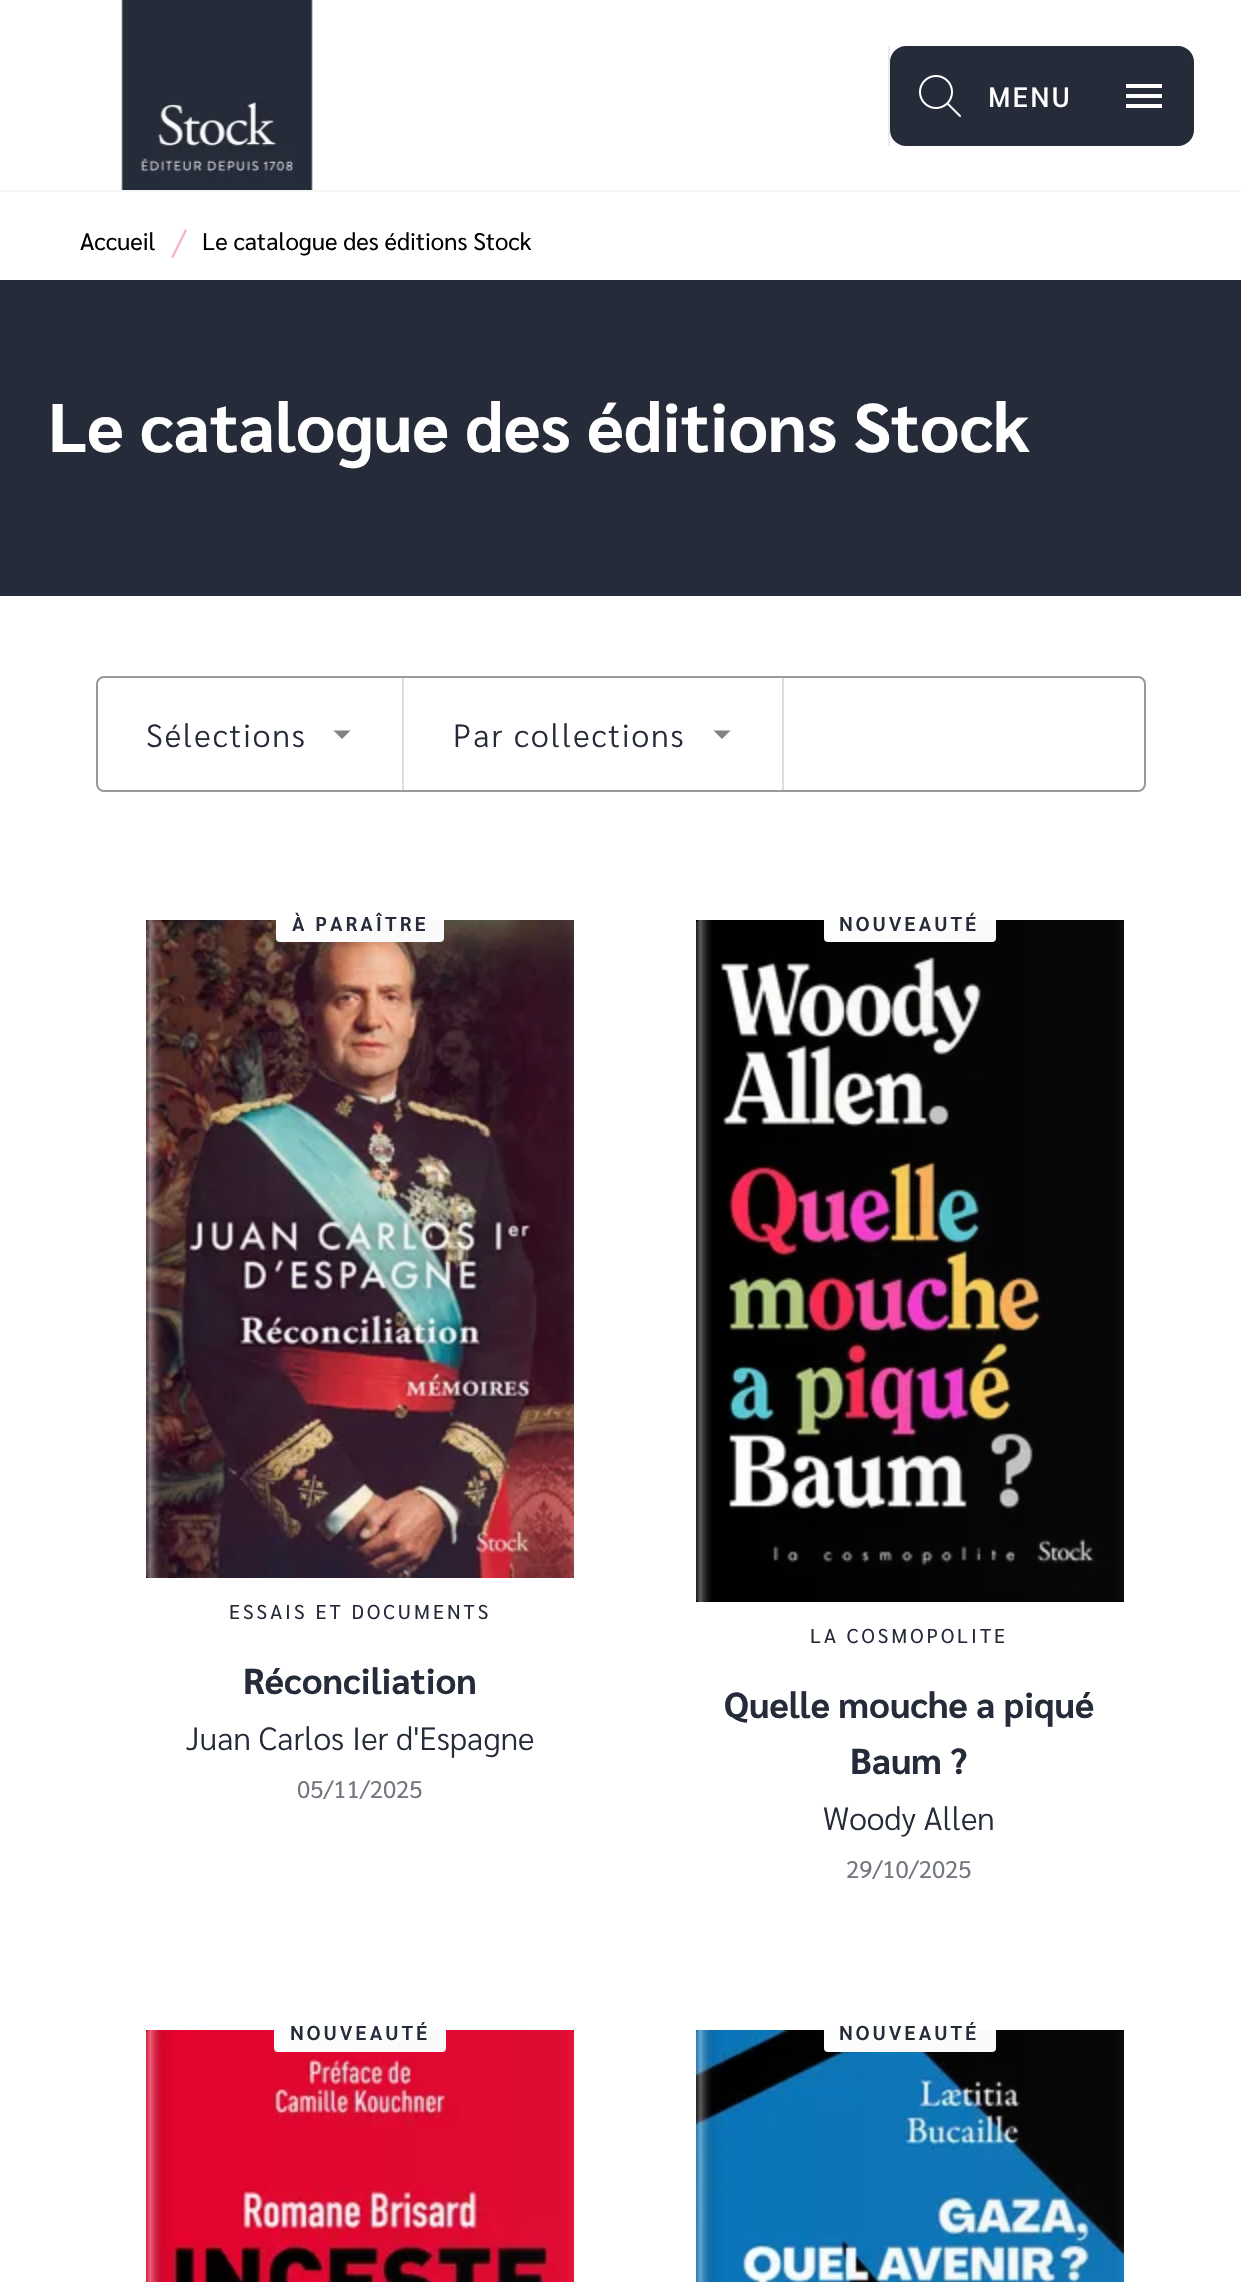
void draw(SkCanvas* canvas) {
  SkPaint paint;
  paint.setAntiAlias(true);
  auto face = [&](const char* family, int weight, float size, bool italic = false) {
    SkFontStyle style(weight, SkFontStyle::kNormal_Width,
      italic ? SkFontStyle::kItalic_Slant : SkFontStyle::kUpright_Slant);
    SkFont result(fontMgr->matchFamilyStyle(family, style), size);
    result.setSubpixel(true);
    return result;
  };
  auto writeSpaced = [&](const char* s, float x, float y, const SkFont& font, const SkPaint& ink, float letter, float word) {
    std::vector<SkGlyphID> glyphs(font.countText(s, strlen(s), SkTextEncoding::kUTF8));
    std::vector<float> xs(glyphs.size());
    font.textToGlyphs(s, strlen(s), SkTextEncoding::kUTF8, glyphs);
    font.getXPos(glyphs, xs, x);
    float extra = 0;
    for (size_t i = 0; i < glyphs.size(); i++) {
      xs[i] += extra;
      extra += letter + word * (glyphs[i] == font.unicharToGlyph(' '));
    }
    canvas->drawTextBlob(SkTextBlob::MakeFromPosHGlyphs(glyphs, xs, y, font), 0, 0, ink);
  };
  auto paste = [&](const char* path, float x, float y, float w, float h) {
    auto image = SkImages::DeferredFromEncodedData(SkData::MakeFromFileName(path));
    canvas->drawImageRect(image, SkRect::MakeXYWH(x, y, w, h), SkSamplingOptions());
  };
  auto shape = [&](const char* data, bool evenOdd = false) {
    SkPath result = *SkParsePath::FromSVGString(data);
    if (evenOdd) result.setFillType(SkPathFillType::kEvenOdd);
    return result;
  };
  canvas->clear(0xffffffff);
  paint.setColor(0xfff5f5f5);
  canvas->drawRect(SkRect::MakeXYWH(0, 190, 1241, 2), paint);
  paste("img/1.png", 121, 0, 192, 190);
  paint.setColor(0xffebebeb);
  canvas->drawRect(SkRect::MakeXYWH(888, 46, 2, 100), paint);
  paint.setColor(0xff252b39);
  canvas->drawRoundRect(SkRect::MakeXYWH(891, 47, 302, 98), 15, 15, paint);
  paint.setStroke(true);
  paint.setStrokeWidth(2);
  canvas->drawRoundRect(SkRect::MakeXYWH(891, 47, 302, 98), 15, 15, paint);
  paste("img/2.png", 919, 75, 42, 42);
  paint.setStroke(false);
  paint.setColor(0xffffffff);
  canvas->drawPath(shape("M1126 84H1162V88H1126ZM1126 98V94H1162V98ZM1126 108V104H1162V108Z"), paint);
  paint.setColor(0xff252b39);
  canvas->drawRect(SkRect::MakeXYWH(0, 280, 1241, 316), paint);
  paint.setStroke(true);
  paint.setColor(0xff999999);
  canvas->drawRoundRect(SkRect::MakeXYWH(97, 677, 1048, 114), 7, 7, paint);
  paint.setStroke(false);
  paint.setColor(0xffdcdddf);
  canvas->drawRect(SkRect::MakeXYWH(402, 678, 2, 112), paint);
  paint.setColor(0xff828282);
  canvas->drawPath(shape("M333.5 730.5H350.5L342 739Z"), paint);
  paint.setColor(0xffdcdddf);
  canvas->drawRect(SkRect::MakeXYWH(782, 678, 2, 112), paint);
  paint.setColor(0xff828282);
  canvas->drawPath(shape("M713.5 730.5H730.5L722 739Z"), paint);
  paste("img/3.png", 146, 920, 428, 658);
  paint.setColor(0xffffffff);
  canvas->drawRoundRect(SkRect::MakeXYWH(276, 906, 168, 36), 4, 4, paint);
  {
    const SkColor colors[] = {0x4dffffff, 0x2ea9a9a9, 0x5cffffff, 0x0f050505, 0x00050505, 0x007f7f7f, 0x0f7f7f7f, 0x0fffffff};
    const float stops[] = {0, 0, 0.01f, 0.04f, 0.07f, 0.07f, 0.98f, 1};
    const SkPoint ends[] = {{146, 1249}, {574, 1249}};
    paint.setShader(SkGradientShader::MakeLinear(ends, colors, stops, 8, SkTileMode::kClamp));
    paint.setAlpha(255);
  }
  canvas->drawRoundRect(SkRect::MakeXYWH(146, 920, 428, 658), 4, 4, paint);
  paste("img/4.png", 696, 920, 428, 682);
  paint.setShader(nullptr);
  paint.setColor(0xffffffff);
  canvas->drawRoundRect(SkRect::MakeXYWH(824, 906, 172, 36), 4, 4, paint);
  {
    const SkColor colors[] = {0x4dffffff, 0x2ea9a9a9, 0x5cffffff, 0x0f050505, 0x00050505, 0x007f7f7f, 0x0f7f7f7f, 0x0fffffff};
    const float stops[] = {0, 0, 0.01f, 0.04f, 0.07f, 0.07f, 0.98f, 1};
    const SkPoint ends[] = {{696, 1261}, {1124, 1261}};
    paint.setShader(SkGradientShader::MakeLinear(ends, colors, stops, 8, SkTileMode::kClamp));
    paint.setAlpha(255);
  }
  canvas->drawRoundRect(SkRect::MakeXYWH(696, 920, 428, 682), 4, 4, paint);
  paste("img/5.png", 146, 2030, 428, 252);
  paint.setShader(nullptr);
  paint.setColor(0xffffffff);
  canvas->drawRoundRect(SkRect::MakeXYWH(274, 2016, 172, 36), 4, 4, paint);
  {
    const SkColor colors[] = {0x4dffffff, 0x2ea9a9a9, 0x5cffffff, 0x0f050505, 0x00050505, 0x007f7f7f, 0x0f7f7f7f, 0x0fffffff};
    const float stops[] = {0, 0, 0.01f, 0.04f, 0.07f, 0.07f, 0.98f, 1};
    const SkPoint ends[] = {{146, 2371}, {574, 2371}};
    paint.setShader(SkGradientShader::MakeLinear(ends, colors, stops, 8, SkTileMode::kClamp));
    paint.setAlpha(255);
  }
  canvas->drawRoundRect(SkRect::MakeXYWH(146, 2030, 428, 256), 4, 4, paint);
  paste("img/6.png", 696, 2030, 428, 252);
  paint.setShader(nullptr);
  paint.setColor(0xffffffff);
  canvas->drawRoundRect(SkRect::MakeXYWH(824, 2016, 172, 36), 4, 4, paint);
  {
    const SkColor colors[] = {0x4dffffff, 0x2ea9a9a9, 0x5cffffff, 0x0f050505, 0x00050505, 0x007f7f7f, 0x0f7f7f7f, 0x0fffffff};
    const float stops[] = {0, 0, 0.01f, 0.04f, 0.07f, 0.07f, 0.98f, 1};
    const SkPoint ends[] = {{696, 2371}, {1124, 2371}};
    paint.setShader(SkGradientShader::MakeLinear(ends, colors, stops, 8, SkTileMode::kClamp));
    paint.setAlpha(255);
  }
  canvas->drawRoundRect(SkRect::MakeXYWH(696, 2030, 428, 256), 4, 4, paint);
  auto f0 = face("Sarabun", 500, 28);
  paint.setShader(nullptr);
  paint.setColor(0xffffffff);
  writeSpaced("MENU", 988, 107, f0, paint, 2, 0);
  auto f1 = face("Sarabun", 400, 24);
  paint.setColor(0xff000000);
  canvas->drawString("Accueil", 80, 250, f1, paint);
  auto f2 = face("Sarabun", 300, 36.1f);
  paint.setColor(0xfff6b2c9);
  canvas->drawString("/", 172, 256, f2, paint);
  paint.setColor(0xff000000);
  canvas->drawString("Le catalogue des éditions Stock", 202, 250, f1, paint);
  auto f3 = face("Sarabun", 700, 68.6f);
  paint.setColor(0xffffffff);
  canvas->drawString("Le catalogue des éditions Stock", 48, 452, f3, paint);
  auto f4 = face("Sarabun", 300, 32);
  paint.setColor(0xff252b39);
  writeSpaced("Sélections", 146, 747, f4, paint, 2, 0);
  writeSpaced("Par collections", 453, 747, f4, paint, 2, 0);
  auto f5 = face("Sarabun", 600, 20);
  writeSpaced("À PARAÎTRE", 292, 931, f5, paint, 3, 0);
  auto f6 = face("Sarabun", 400, 20);
  writeSpaced("ESSAIS ET DOCUMENTS", 229, 1619, f6, paint, 3, 0);
  auto f7 = face("Sarabun", 700, 36.1f);
  canvas->drawString("Réconciliation", 243, 1694, f7, paint);
  canvas->drawString("Juan Carlos Ier d'Espagne", 186, 1750, f4, paint);
  paint.setColor(0xff737780);
  canvas->drawString("05/11/2025", 297, 1798, f1, paint);
  paint.setColor(0xff252b39);
  writeSpaced("NOUVEAUTÉ", 839, 931, f5, paint, 3, 0);
  writeSpaced("LA COSMOPOLITE", 810, 1643, f6, paint, 3, 0);
  canvas->drawString("Quelle mouche a piqué", 724, 1718, f7, paint);
  canvas->drawString("Baum ?", 850, 1774, f7, paint);
  canvas->drawString("Woody Allen", 823, 1830, f4, paint);
  paint.setColor(0xff737780);
  canvas->drawString("29/10/2025", 846, 1878, f1, paint);
  canvas->save();
  canvas->clipRect(SkRect::MakeXYWH(274, 2022, 172, 24));
  paint.setColor(0xff252b39);
  writeSpaced("NOUVEAUTÉ", 290, 2040, f5, paint, 3, 0);
  canvas->restore();
  canvas->save();
  canvas->clipRect(SkRect::MakeXYWH(824, 2022, 172, 24));
  writeSpaced("NOUVEAUTÉ", 839, 2040, f5, paint, 3, 0);
  canvas->restore();
}
